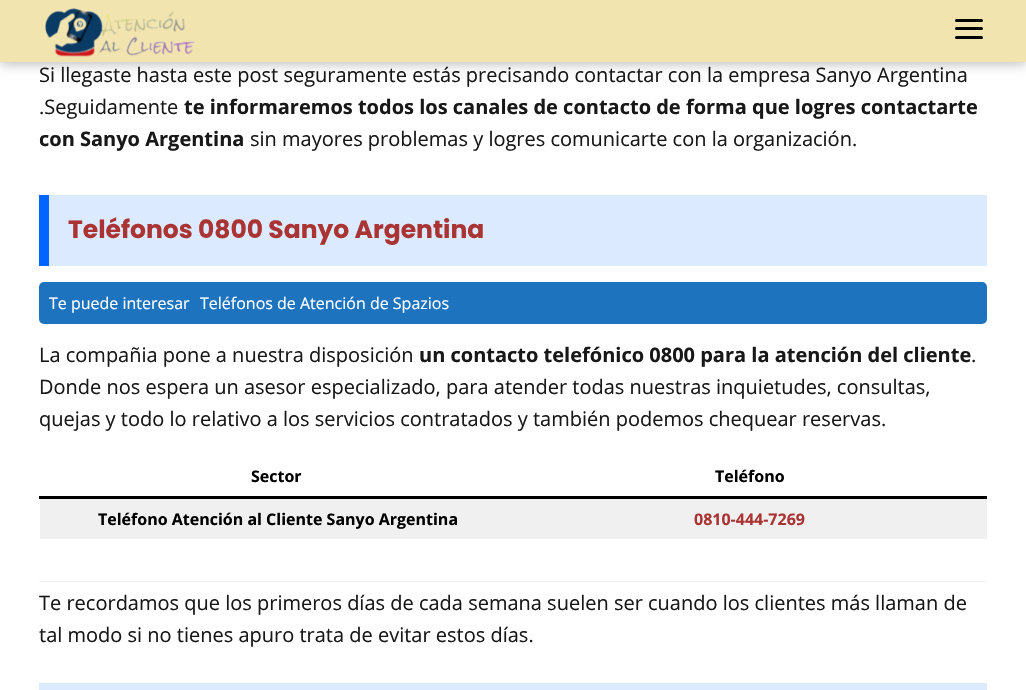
void draw(SkCanvas* canvas) {
  SkPaint paint;
  paint.setAntiAlias(true);
  auto face = [&](const char* family, int weight, float size, bool italic = false) {
    SkFontStyle style(weight, SkFontStyle::kNormal_Width,
      italic ? SkFontStyle::kItalic_Slant : SkFontStyle::kUpright_Slant);
    SkFont result(fontMgr->matchFamilyStyle(family, style), size);
    result.setSubpixel(true);
    return result;
  };
  auto paste = [&](const char* path, float x, float y, float w, float h) {
    auto image = SkImages::DeferredFromEncodedData(SkData::MakeFromFileName(path));
    canvas->drawImageRect(image, SkRect::MakeXYWH(x, y, w, h), SkSamplingOptions());
  };
  canvas->clear(0xffffffff);
  paint.setColor(0x4d000000);
  paint.setMaskFilter(SkMaskFilter::MakeBlur(kNormal_SkBlurStyle, 6));
  canvas->drawRect(SkRect::MakeXYWH(0, 1, 1026, 62), paint);
  paint.setMaskFilter(nullptr);
  paint.setColor(0xfff2e4ae);
  canvas->drawRect(SkRect::MakeXYWH(0, 0, 1026, 62), paint);
  paste("img/1.png", 45, 8, 150, 49);
  paint.setColor(0xff000000);
  canvas->drawRoundRect(SkRect::MakeXYWH(955, 19, 28, 3), 1.5f, 1.5f, paint);
  canvas->drawRoundRect(SkRect::MakeXYWH(955, 27, 28, 3), 1.5f, 1.5f, paint);
  canvas->drawRoundRect(SkRect::MakeXYWH(955, 36, 28, 3), 1.5f, 1.5f, paint);
  paint.setColor(0xffdbeaff);
  canvas->drawRect(SkRect::MakeXYWH(49, 195, 938, 71), paint);
  paint.setColor(0xff0066ff);
  canvas->drawRect(SkRect::MakeXYWH(39, 195, 10, 71), paint);
  paint.setColor(0xff1e73be);
  canvas->drawRoundRect(SkRect::MakeXYWH(39, 282, 948, 42), 5, 5, paint);
  {
    const struct { float x, y, w, h; SkColor color; } items[] = {
      {39, 581, 948, 1, 0xfff0f0f0},
      {39, 496, 948, 3, 0xff000000},
      {40, 499, 947, 40, 0xfff0f0f0},
      {39, 683, 948, 7, 0xffdbeaff},
    };
    for (auto [x, y, w, h, color] : items) {
      paint.setColor(color);
      canvas->drawRect(SkRect::MakeXYWH(x, y, w, h), paint);
    }
  }
  auto f0 = face("Open Sans", 400, 20);
  paint.setColor(0xff181818);
  canvas->drawString("Si llegaste hasta este post seguramente estás precisando contactar con la empresa Sanyo Argentina", 39, 82, f0, paint);
  canvas->drawString(".Seguidamente", 39, 114, f0, paint);
  auto f1 = face("Open Sans", 700, 20);
  canvas->drawString("te informaremos todos los canales de contacto de forma que logres contactarte", 184, 114, f1, paint);
  canvas->drawString("con Sanyo Argentina", 39, 146, f1, paint);
  canvas->drawString("sin mayores problemas y logres comunicarte con la organización.", 250, 146, f0, paint);
  auto f2 = face("Poppins", 700, 25);
  paint.setColor(0xffaa3434);
  canvas->drawString("Teléfonos 0800 Sanyo Argentina", 68, 238, f2, paint);
  auto f3 = face("Open Sans", 400, 16);
  paint.setColor(0xffffffff);
  canvas->drawString("Te puede interesar", 49, 309, f3, paint);
  canvas->drawString("Teléfonos de Atención de Spazios", 200, 309, f3, paint);
  paint.setColor(0xff181818);
  canvas->drawString("La compañia pone a nuestra disposición", 39, 362, f0, paint);
  canvas->drawString("un contacto telefónico 0800 para la atención del cliente", 419, 362, f1, paint);
  {
    const struct { const char* s; float x, y; } items[] = {
      {".", 971, 362},
      {"Donde nos espera un asesor especializado, para atender todas nuestras inquietudes, consultas,", 39, 394},
      {"quejas y todo lo relativo a los servicios contratados y también podemos chequear reservas.", 39, 426},
    };
    for (auto [s, x, y] : items) {
      canvas->drawString(s, x, y, f0, paint);
    }
  }
  auto f4 = face("Open Sans", 700, 16);
  paint.setColor(0xff000000);
  {
    const struct { const char* s; float x, y; } items[] = {
      {"Sector", 251, 482},
      {"Teléfono", 715, 482},
      {"Teléfono Atención al Cliente Sanyo Argentina", 98, 525},
    };
    for (auto [s, x, y] : items) {
      canvas->drawString(s, x, y, f4, paint);
    }
  }
  paint.setColor(0xffaa3434);
  canvas->drawString("0810-444-7269", 694, 525, f4, paint);
  paint.setColor(0xff181818);
  canvas->drawString("Te recordamos que los primeros días de cada semana suelen ser cuando los clientes más llaman de", 39, 610, f0, paint);
  canvas->drawString("tal modo si no tienes apuro trata de evitar estos días.", 39, 642, f0, paint);
}
